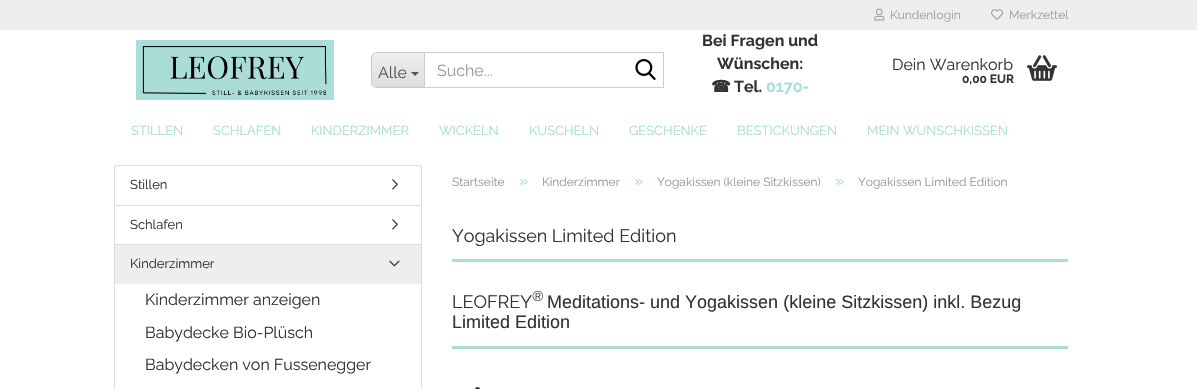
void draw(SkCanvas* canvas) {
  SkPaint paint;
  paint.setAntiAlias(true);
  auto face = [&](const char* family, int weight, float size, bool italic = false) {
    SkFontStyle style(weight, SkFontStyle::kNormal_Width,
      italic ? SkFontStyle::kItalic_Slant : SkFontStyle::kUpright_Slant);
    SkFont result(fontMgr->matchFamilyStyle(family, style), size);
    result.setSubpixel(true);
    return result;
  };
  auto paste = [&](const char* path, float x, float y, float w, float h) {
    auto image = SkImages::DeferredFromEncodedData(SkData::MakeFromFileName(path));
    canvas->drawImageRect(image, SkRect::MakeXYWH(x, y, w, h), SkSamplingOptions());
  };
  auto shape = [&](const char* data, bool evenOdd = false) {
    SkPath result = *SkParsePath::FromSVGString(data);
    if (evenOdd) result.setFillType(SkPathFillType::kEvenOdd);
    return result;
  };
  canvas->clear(0xffffffff);
  paint.setColor(0xffeeeeee);
  canvas->drawRect(SkRect::MakeXYWH(0, 0, 1197, 30), paint);
  paste("img/1.png", 874, 8, 11, 13);
  paste("img/2.png", 991, 9, 12, 11);
  paste("img/3.png", 136, 40, 198, 60);
  canvas->save();
  canvas->clipPath(shape("M377 52H424V88H377C373.5 88 371 85.5 371 82V58C371 54.5 373.5 52 377 52Z"), true);
  {
    const SkColor colors[] = {0xffeeeeee, 0xffdedede};
    const float stops[] = {0, 1};
    const SkPoint ends[] = {{398, 53}, {398, 87}};
    paint.setShader(SkGradientShader::MakeLinear(ends, colors, stops, 2, SkTileMode::kClamp));
    paint.setAlpha(255);
  }
  canvas->drawRect(SkRect::MakeXYWH(371, 53, 53, 34), paint);
  canvas->restore();
  paint.setShader(nullptr);
  paint.setColor(0xffcccccc);
  canvas->drawPath(shape("M377 52H424V88H377C374 88 371 85 371 82V58C371 55 374 52 377 52ZM377 53H424V87H377C374 87 372 85 372 82V58C372 55 374 53 377 53Z", true), paint);
  paint.setColor(0xff555555);
  canvas->drawPath(shape("M411 72H419L415 76Z"), paint);
  paint.setStroke(true);
  paint.setStrokeWidth(1);
  paint.setColor(0xffcccccc);
  canvas->drawRect(SkRect::MakeXYWH(424.5f, 52.5f, 239, 35), paint);
  paste("img/4.png", 635, 59, 21, 21);
  paste("img/5.png", 1027, 55, 30, 26);
  paint.setStroke(false);
  {
    const struct { float x, y, w, h; SkColor color; } items[] = {
      {115, 165, 306, 1, 0xffdddddd},
      {421, 166, 1, 223, 0xffdddddd},
      {114, 166, 1, 223, 0xffdddddd},
      {115, 205, 306, 1, 0xffdddddd},
    };
    for (auto [x, y, w, h, color] : items) {
      paint.setColor(color);
      canvas->drawRect(SkRect::MakeXYWH(x, y, w, h), paint);
    }
  }
  paste("img/6.png", 392, 179, 6, 11);
  canvas->drawRect(SkRect::MakeXYWH(115, 244, 306, 1), paint);
  paste("img/6.png", 392, 219, 6, 11);
  paint.setColor(0xffeeeeee);
  canvas->drawRect(SkRect::MakeXYWH(115, 245, 306, 39), paint);
  paste("img/7.png", 389, 260, 11, 7);
  paint.setColor(0xffabddd7);
  canvas->drawRect(SkRect::MakeXYWH(452, 259, 616, 3), paint);
  canvas->drawRect(SkRect::MakeXYWH(452, 346, 616, 3), paint);
  paint.setColor(0xff333333);
  canvas->drawCircle(477.5f, 389.5f, 2.5f, paint);
  auto f0 = face("Raleway", 100, 12);
  paint.setColor(0xff9f9f9f);
  canvas->drawString("Kundenlogin", 890, 19, f0, paint);
  canvas->drawString("Merkzettel", 1009, 19, f0, paint);
  auto f1 = face("Raleway", 100, 16);
  paint.setColor(0xff555555);
  canvas->drawString("Alle", 378, 78, f1, paint);
  paint.setColor(0xff999999);
  canvas->drawString("Suche...", 437, 76, f1, paint);
  auto f2 = face("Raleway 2", 100, 16);
  paint.setColor(0xff333333);
  canvas->drawString("Bei Fragen und", 702, 46, f2, paint);
  canvas->drawString("Wünschen:", 717, 69, f2, paint);
  auto f3 = face("DejaVu Sans", 700, 16);
  canvas->drawString("☎", 711, 92, f3, paint);
  canvas->drawString("Tel.", 734, 92, f2, paint);
  paint.setColor(0xffabddd7);
  canvas->drawString("0170-", 766, 92, f2, paint);
  paint.setColor(0xff333333);
  canvas->drawString("Dein Warenkorb", 892, 70, f1, paint);
  auto f4 = face("Raleway 2", 100, 12);
  canvas->drawString("0,00 EUR", 962, 83, f4, paint);
  auto f5 = face("Raleway", 100, 13);
  paint.setColor(0xffabddd7);
  {
    const struct { const char* s; float x, y; } items[] = {
      {"STILLEN", 131, 135},
      {"SCHLAFEN", 213, 135},
      {"KINDERZIMMER", 311, 135},
      {"WICKELN", 439, 135},
      {"KUSCHELN", 529, 135},
      {"GESCHENKE", 629, 135},
      {"BESTICKUNGEN", 737, 135},
      {"MEIN WUNSCHKISSEN", 867, 135},
    };
    for (auto [s, x, y] : items) {
      canvas->drawString(s, x, y, f5, paint);
    }
  }
  paint.setColor(0xff333333);
  {
    const struct { const char* s; float x, y; } items[] = {
      {"Stillen", 130, 189},
      {"Schlafen", 130, 229},
      {"Kinderzimmer", 130, 268},
    };
    for (auto [s, x, y] : items) {
      canvas->drawString(s, x, y, f5, paint);
    }
  }
  {
    const struct { const char* s; float x, y; } items[] = {
      {"Kinderzimmer anzeigen", 145, 305},
      {"Babydecke Bio-Plüsch", 145, 338},
      {"Babydecken von Fussenegger", 145, 370},
    };
    for (auto [s, x, y] : items) {
      canvas->drawString(s, x, y, f1, paint);
    }
  }
  paint.setColor(0xff999999);
  canvas->drawString("Startseite", 452, 186, f0, paint);
  paint.setColor(0xffabddd7);
  canvas->drawString("»", 519, 186, f1, paint);
  paint.setColor(0xff999999);
  canvas->drawString("Kinderzimmer", 542, 186, f0, paint);
  paint.setColor(0xffabddd7);
  canvas->drawString("»", 634, 186, f1, paint);
  paint.setColor(0xff999999);
  canvas->drawString("Yogakissen (kleine Sitzkissen)", 657, 186, f0, paint);
  paint.setColor(0xffabddd7);
  canvas->drawString("»", 835, 186, f1, paint);
  paint.setColor(0xff999999);
  canvas->drawString("Yogakissen Limited Edition", 858, 186, f0, paint);
  auto f6 = face("Raleway", 100, 18);
  paint.setColor(0xff333333);
  canvas->drawString("Yogakissen Limited Edition", 452, 242, f6, paint);
  canvas->drawString("LEOFREY", 452, 308, f6, paint);
  auto f7 = face("Raleway", 100, 14);
  canvas->drawString("®", 532, 301, f7, paint);
  auto f8 = face("Liberation Sans", 400, 18);
  canvas->drawString("Meditations- und Yogakissen (kleine Sitzkissen) inkl. Bezug", 547, 308, f8, paint);
  canvas->drawString("Limited Edition", 452, 328, f8, paint);
}
